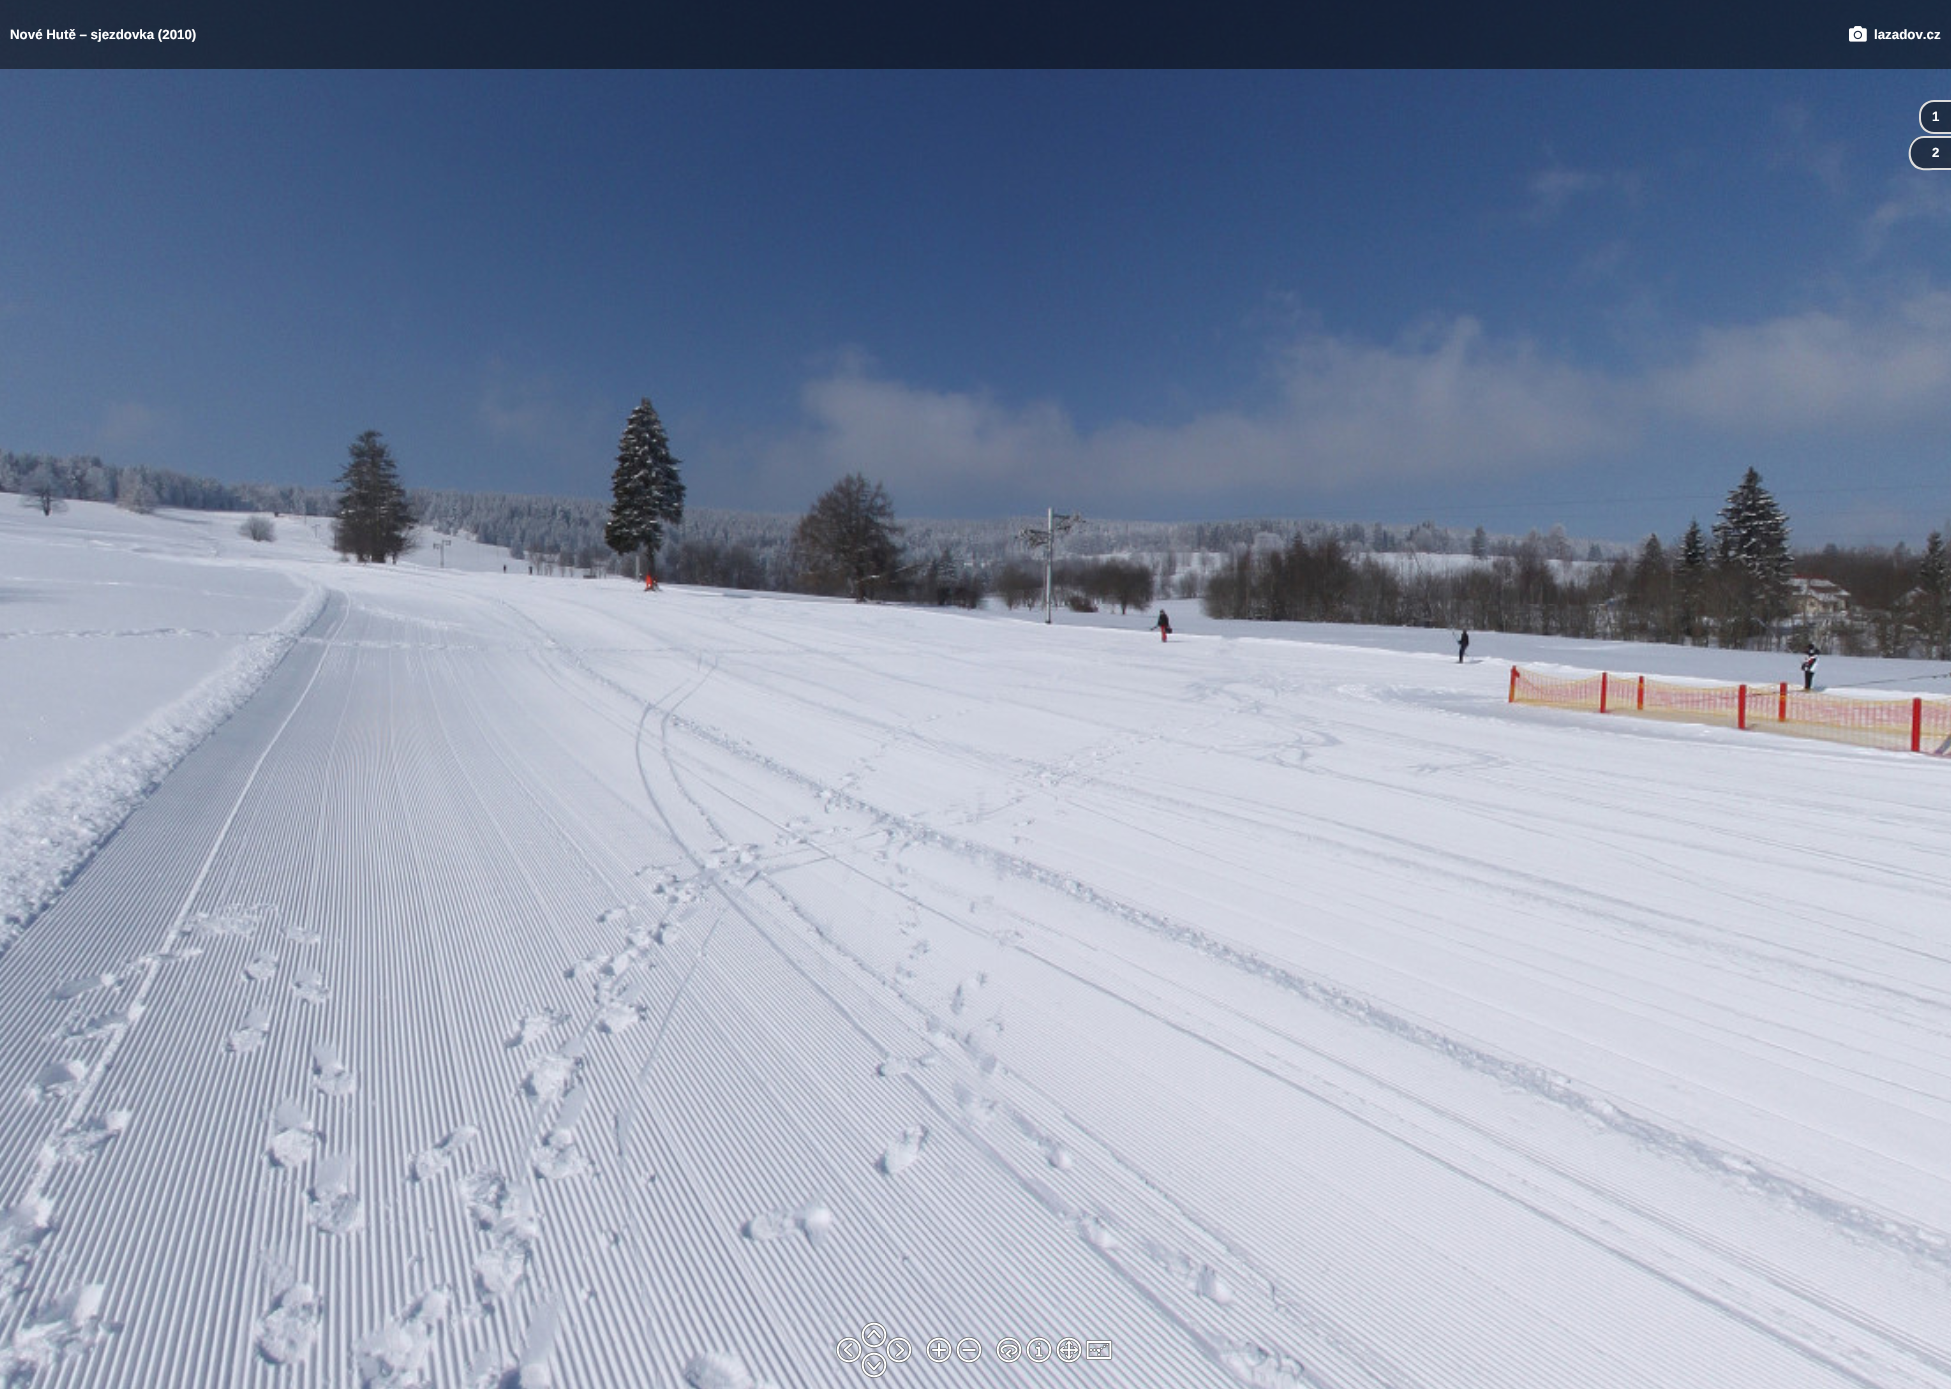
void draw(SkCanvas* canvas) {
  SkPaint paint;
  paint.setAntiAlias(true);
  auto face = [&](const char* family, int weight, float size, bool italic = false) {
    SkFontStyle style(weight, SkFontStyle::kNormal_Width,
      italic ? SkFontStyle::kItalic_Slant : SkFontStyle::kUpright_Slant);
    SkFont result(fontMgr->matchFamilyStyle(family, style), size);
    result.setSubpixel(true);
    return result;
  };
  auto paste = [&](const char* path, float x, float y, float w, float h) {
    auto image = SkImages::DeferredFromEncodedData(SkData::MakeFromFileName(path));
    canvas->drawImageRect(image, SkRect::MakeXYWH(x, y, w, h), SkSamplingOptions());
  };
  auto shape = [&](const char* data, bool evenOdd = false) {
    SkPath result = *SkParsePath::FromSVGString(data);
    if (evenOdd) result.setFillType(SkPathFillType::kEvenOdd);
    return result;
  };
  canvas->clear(0xffffffff);
  paste("img/2.png", 0, 0, 1951, 1389);
  paint.setColor(0x7d000000);
  canvas->drawRect(SkRect::MakeXYWH(0, 0, 1951, 69), paint);
  paste("img/1.png", 1849, 26, 18, 16);
  paste("img/4.png", 860, 1321, 28, 28);
  paste("img/12.png", 860, 1351, 28, 28);
  paste("img/3.png", 835, 1336, 28, 28);
  paste("img/5.png", 885, 1336, 28, 28);
  paste("img/6.png", 925, 1336, 28, 28);
  paste("img/7.png", 955, 1336, 28, 28);
  paste("img/8.png", 995, 1336, 28, 28);
  paste("img/9.png", 1025, 1336, 28, 28);
  paste("img/10.png", 1055, 1336, 28, 28);
  paste("img/11.png", 1085, 1339, 28, 22);
  canvas->drawPath(shape("M1934 100H1951V134H1934C1925.5 134 1919 127.5 1919 119V115C1919 106.5 1925.5 100 1934 100Z"), paint);
  paint.setColor(0xffdddddd);
  canvas->drawPath(shape("M1934 100H1951V134H1934C1925.5 134 1919 127.5 1919 119V115C1919 106.5 1925.5 100 1934 100ZM1934 102H1951V132H1934C1927 132 1921 126 1921 119V115C1921 108 1927 102 1934 102Z", true), paint);
  paint.setColor(0x7d000000);
  canvas->drawPath(shape("M1924 136H1951V170H1924C1915.5 170 1909 163.5 1909 155V151C1909 142.5 1915.5 136 1924 136Z"), paint);
  paint.setColor(0xffdddddd);
  canvas->drawPath(shape("M1924 136H1951V170H1933C1928 170 1923 171 1918 169C1903 163 1907 136 1924 136ZM1924 138H1951V168H1933C1928 168 1923 169 1919 167C1906 161 1909 138 1924 138Z", true), paint);
  auto f0 = face("Liberation Sans", 700, 13.3f);
  paint.setColor(0xffffffff);
  {
    const struct { const char* s; float x, y; } items[] = {
      {"Nové Hutě – sjezdovka (2010)", 10, 39},
      {"lazadov.cz", 1874, 39},
      {"1", 1932, 121},
      {"2", 1932, 157},
    };
    for (auto [s, x, y] : items) {
      canvas->drawString(s, x, y, f0, paint);
    }
  }
}
